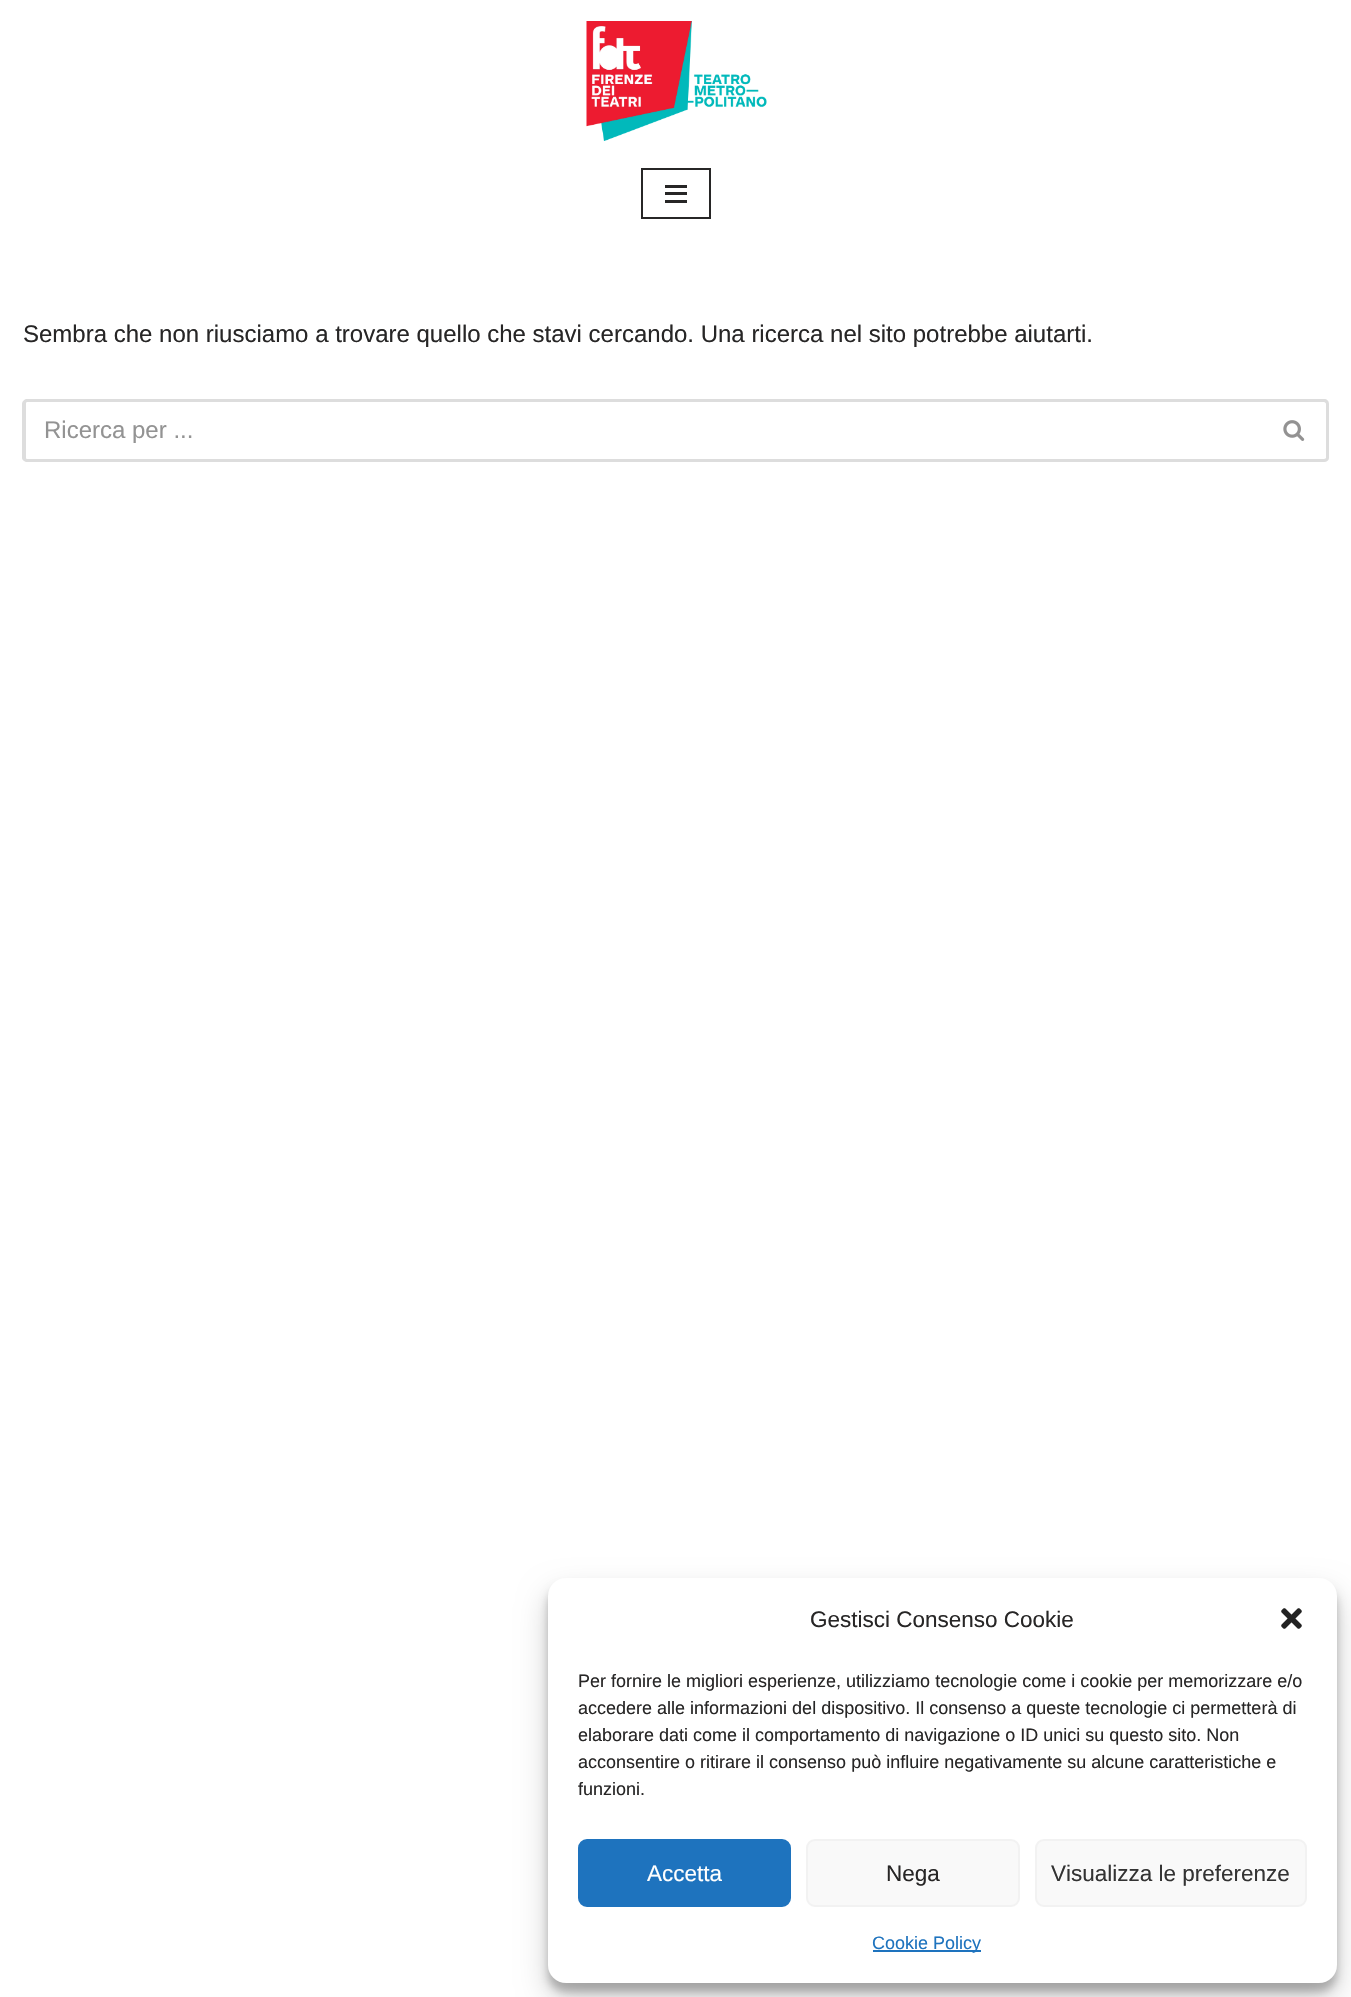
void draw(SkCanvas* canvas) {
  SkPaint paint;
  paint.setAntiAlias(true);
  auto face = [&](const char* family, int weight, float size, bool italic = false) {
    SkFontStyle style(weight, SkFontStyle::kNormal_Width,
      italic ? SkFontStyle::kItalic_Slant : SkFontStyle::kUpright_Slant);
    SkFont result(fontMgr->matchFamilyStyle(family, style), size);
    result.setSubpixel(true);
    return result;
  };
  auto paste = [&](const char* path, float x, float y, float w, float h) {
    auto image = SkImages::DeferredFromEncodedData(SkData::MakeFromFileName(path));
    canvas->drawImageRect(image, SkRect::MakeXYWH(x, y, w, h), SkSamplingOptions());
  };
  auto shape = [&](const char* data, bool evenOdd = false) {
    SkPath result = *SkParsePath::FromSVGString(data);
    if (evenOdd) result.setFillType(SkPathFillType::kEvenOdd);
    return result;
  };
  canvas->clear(0xffffffff);
  paste("img/1.png", 586, 21, 181, 120);
  paint.setStroke(true);
  paint.setStrokeWidth(2);
  paint.setColor(0xff272626);
  canvas->drawRect(SkRect::MakeXYWH(642, 169, 68, 49), paint);
  paint.setStroke(false);
  {
    const struct { float x, y, w, h; SkColor color; } items[] = {
      {665, 185, 22, 3, 0xff272626},
      {665, 192, 22, 3, 0xff272626},
      {665, 200, 22, 3, 0xff272626},
    };
    for (auto [x, y, w, h, color] : items) {
      paint.setColor(color);
      canvas->drawRect(SkRect::MakeXYWH(x, y, w, h), paint);
    }
  }
  paint.setColor(0xffdddddd);
  canvas->drawPath(shape("M27 399H1262V462H27C25 462 22 460 22 458V404C22 401 25 399 27 399ZM27 402H1262V459H27C26 459 26 458 26 458V404C26 403 26 402 27 402Z", true), paint);
  canvas->drawPath(shape("M1262 399H1324C1327 399 1329 401 1329 404V458C1329 460 1327 462 1324 462H1262ZM1262 402H1324C1325 402 1326 403 1326 404V458C1326 458 1325 459 1324 459H1262Z", true), paint);
  paste("img/2.png", 1283, 420, 22, 21);
  paint.setColor(0x3b000000);
  paint.setMaskFilter(SkMaskFilter::MakeBlur(kNormal_SkBlurStyle, 4.5f));
  canvas->drawRoundRect(SkRect::MakeXYWH(548, 1587, 789, 405), 18, 18, paint);
  paint.setMaskFilter(nullptr);
  paint.setColor(0x30000000);
  paint.setMaskFilter(SkMaskFilter::MakeBlur(kNormal_SkBlurStyle, 15));
  canvas->drawRoundRect(SkRect::MakeXYWH(548, 1593, 789, 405), 18, 18, paint);
  paint.setMaskFilter(nullptr);
  paint.setColor(0xffffffff);
  canvas->drawRoundRect(SkRect::MakeXYWH(548, 1578, 789, 405), 18, 18, paint);
  paste("img/3.png", 1281, 1608, 21, 21);
  paint.setColor(0xff1e73be);
  canvas->drawRoundRect(SkRect::MakeXYWH(579, 1840, 211, 66), 8, 8, paint);
  paint.setStroke(true);
  canvas->drawRoundRect(SkRect::MakeXYWH(579, 1840, 211, 66), 8, 8, paint);
  paint.setStroke(false);
  paint.setColor(0xfff9f9f9);
  canvas->drawRoundRect(SkRect::MakeXYWH(807, 1840, 212, 66), 8, 8, paint);
  paint.setStroke(true);
  paint.setColor(0xfff2f2f2);
  canvas->drawRoundRect(SkRect::MakeXYWH(807, 1840, 212, 66), 8, 8, paint);
  paint.setStroke(false);
  paint.setColor(0xfff9f9f9);
  canvas->drawRoundRect(SkRect::MakeXYWH(1036, 1840, 270, 66), 8, 8, paint);
  paint.setStroke(true);
  paint.setColor(0xfff2f2f2);
  canvas->drawRoundRect(SkRect::MakeXYWH(1036, 1840, 270, 66), 8, 8, paint);
  paint.setStroke(false);
  paint.setColor(0xff1e73be);
  canvas->drawRect(SkRect::MakeXYWH(873, 1950, 108, 2), paint);
  auto f0 = face("Liberation Sans", 400, 24);
  paint.setColor(0xff272626);
  canvas->drawString("Sembra che non riusciamo a trovare quello che stavi cercando. Una ricerca nel sito potrebbe aiutarti.", 23, 342, f0, paint);
  paint.setColor(0xff939393);
  canvas->drawString("Ricerca per ...", 44, 438, f0, paint);
  auto f1 = face("Liberation Sans", 400, 22.5f);
  paint.setColor(0xff272626);
  canvas->drawString("Gestisci Consenso Cookie", 810, 1627, f1, paint);
  auto f2 = face("Liberation Sans", 400, 18);
  {
    const struct { const char* s; float x, y; } items[] = {
      {"Per fornire le migliori esperienze, utilizziamo tecnologie come i cookie per memorizzare e/o", 578, 1687},
      {"accedere alle informazioni del dispositivo. Il consenso a queste tecnologie ci permetterà di", 578, 1714},
      {"elaborare dati come il comportamento di navigazione o ID unici su questo sito. Non", 578, 1741},
      {"acconsentire o ritirare il consenso può influire negativamente su alcune caratteristiche e", 578, 1768},
      {"funzioni.", 578, 1795},
    };
    for (auto [s, x, y] : items) {
      canvas->drawString(s, x, y, f2, paint);
    }
  }
  paint.setColor(0xffffffff);
  canvas->drawString("Accetta", 647, 1881, f1, paint);
  paint.setColor(0xff272626);
  canvas->drawString("Nega", 886, 1881, f1, paint);
  paint.setColor(0xff333333);
  canvas->drawString("Visualizza le preferenze", 1051, 1881, f1, paint);
  paint.setColor(0xff1e73be);
  canvas->drawString("Cookie Policy", 872, 1949, f2, paint);
}
